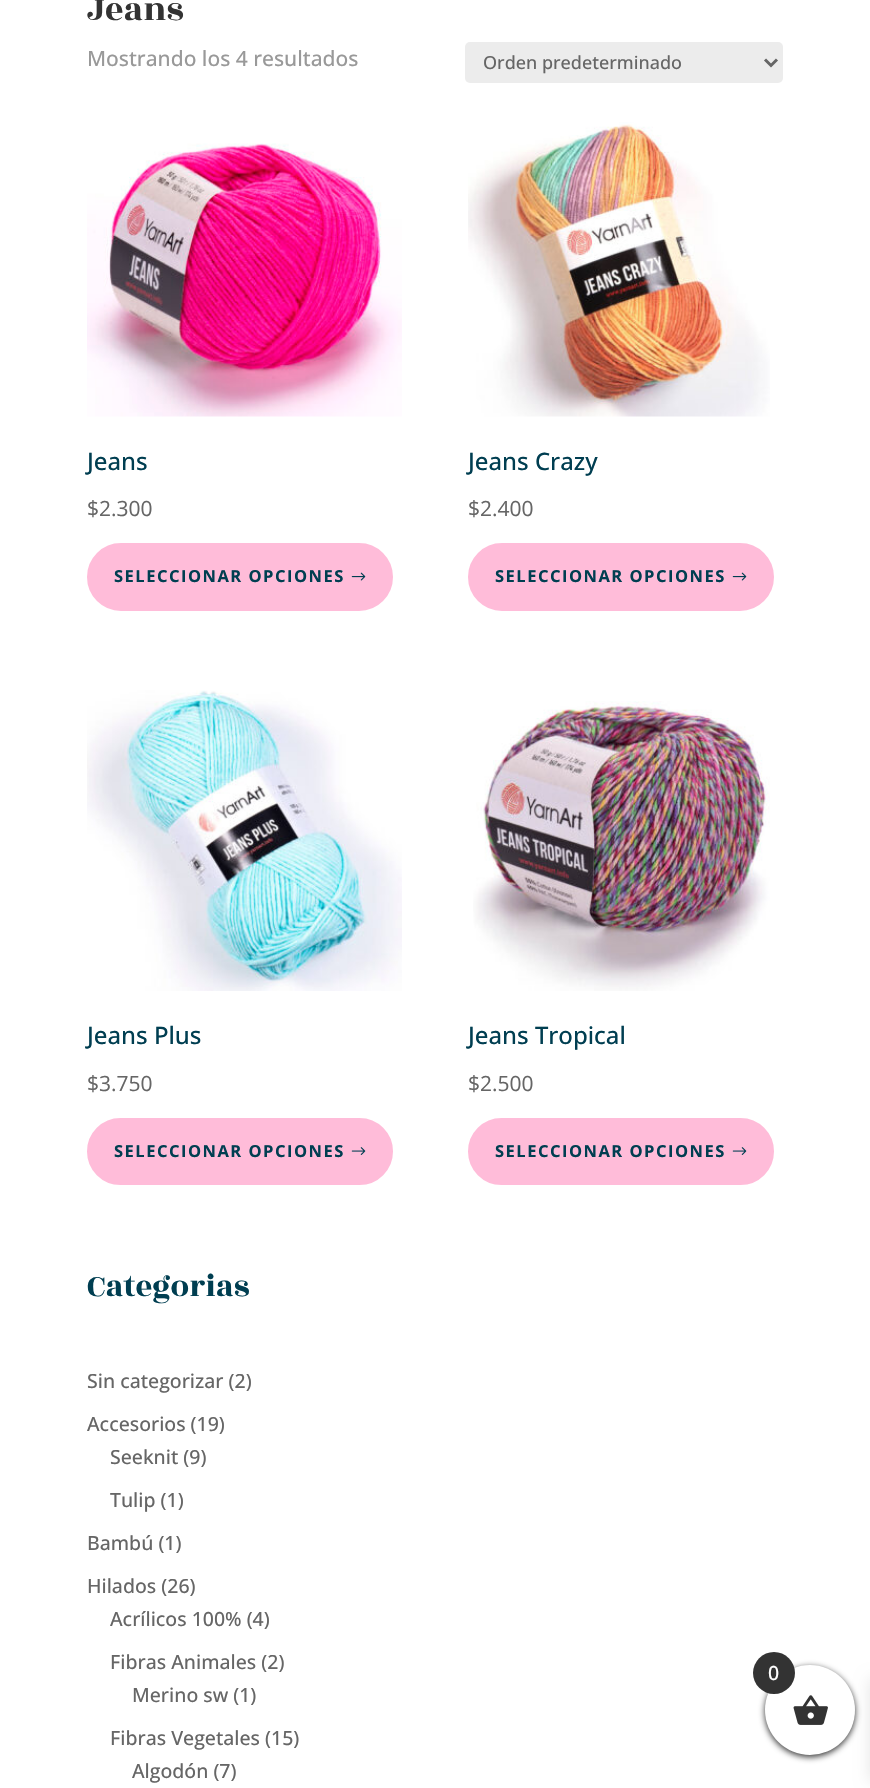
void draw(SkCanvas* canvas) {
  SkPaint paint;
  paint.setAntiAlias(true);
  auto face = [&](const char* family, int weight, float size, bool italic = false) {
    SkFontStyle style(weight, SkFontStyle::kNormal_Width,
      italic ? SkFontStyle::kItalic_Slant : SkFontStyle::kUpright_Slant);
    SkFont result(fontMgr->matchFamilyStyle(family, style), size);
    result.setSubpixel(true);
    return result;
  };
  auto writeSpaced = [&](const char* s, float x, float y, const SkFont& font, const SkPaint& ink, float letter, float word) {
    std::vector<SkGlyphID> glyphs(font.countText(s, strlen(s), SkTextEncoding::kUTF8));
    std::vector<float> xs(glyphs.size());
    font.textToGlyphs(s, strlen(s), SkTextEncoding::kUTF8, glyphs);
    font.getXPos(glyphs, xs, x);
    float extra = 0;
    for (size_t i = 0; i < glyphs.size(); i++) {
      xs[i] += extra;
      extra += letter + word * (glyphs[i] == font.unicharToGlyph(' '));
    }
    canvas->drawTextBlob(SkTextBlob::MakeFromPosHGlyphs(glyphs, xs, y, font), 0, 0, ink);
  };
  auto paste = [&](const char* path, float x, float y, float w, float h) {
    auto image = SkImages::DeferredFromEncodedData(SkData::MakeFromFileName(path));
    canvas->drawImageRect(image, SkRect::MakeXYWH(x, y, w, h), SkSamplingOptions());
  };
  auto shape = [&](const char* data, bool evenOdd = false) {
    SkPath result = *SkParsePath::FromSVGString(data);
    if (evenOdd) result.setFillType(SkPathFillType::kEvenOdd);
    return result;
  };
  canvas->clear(0xffffffff);
  paint.setColor(0xffececec);
  canvas->drawRoundRect(SkRect::MakeXYWH(465, 42, 318, 41), 5, 5, paint);
  paint.setStroke(true);
  paint.setStrokeWidth(3);
  paint.setColor(0xff666666);
  canvas->drawPath(shape("M765 59.5L771 65.5L777 59.5"), paint);
  paste("img/1.png", 87, 143, 315, 274);
  paint.setStroke(false);
  paint.setColor(0xffffbcd9);
  canvas->drawRoundRect(SkRect::MakeXYWH(94.5f, 550.5f, 291, 53), 26.5f, 26.5f, paint);
  paint.setStroke(true);
  paint.setStrokeWidth(15);
  canvas->drawRoundRect(SkRect::MakeXYWH(94.5f, 550.5f, 291, 53), 26.5f, 26.5f, paint);
  paste("img/2.png", 351, 572, 15, 9);
  paste("img/3.png", 468, 122, 302, 295);
  paint.setStroke(false);
  canvas->drawRoundRect(SkRect::MakeXYWH(475.5f, 550.5f, 291, 53), 26.5f, 26.5f, paint);
  paint.setStroke(true);
  canvas->drawRoundRect(SkRect::MakeXYWH(475.5f, 550.5f, 291, 53), 26.5f, 26.5f, paint);
  paste("img/2.png", 732, 572, 15, 9);
  paste("img/4.png", 87, 690, 315, 301);
  paint.setStroke(false);
  canvas->drawRoundRect(SkRect::MakeXYWH(94.5f, 1125.5f, 291, 52), 26, 26, paint);
  paint.setStroke(true);
  canvas->drawRoundRect(SkRect::MakeXYWH(94.5f, 1125.5f, 291, 52), 26, 26, paint);
  paste("img/5.png", 351, 1147, 15, 8);
  paste("img/6.png", 473, 701, 297, 290);
  paint.setStroke(false);
  canvas->drawRoundRect(SkRect::MakeXYWH(475.5f, 1125.5f, 291, 52), 26, 26, paint);
  paint.setStroke(true);
  canvas->drawRoundRect(SkRect::MakeXYWH(475.5f, 1125.5f, 291, 52), 26, 26, paint);
  paste("img/5.png", 732, 1147, 15, 8);
  paint.setStroke(false);
  paint.setColor(0xff333333);
  paint.setMaskFilter(SkMaskFilter::MakeBlur(kNormal_SkBlurStyle, 3));
  canvas->drawRoundRect(SkRect::MakeXYWH(765, 1667, 90, 90), 45, 45, paint);
  paint.setMaskFilter(nullptr);
  paint.setColor(0x1a000000);
  paint.setMaskFilter(SkMaskFilter::MakeBlur(kNormal_SkBlurStyle, 7.5f));
  canvas->drawRect(SkRect::MakeXYWH(870, 1679, 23, 102), paint);
  paint.setMaskFilter(nullptr);
  paint.setColor(0xffffffff);
  canvas->drawCircle(810, 1710, 45, paint);
  paint.setColor(0xff333333);
  canvas->drawCircle(774, 1673, 21, paint);
  paste("img/7.png", 793, 1695, 35, 30);
  auto f0 = face("Rozha One", 400, 36);
  canvas->drawString("Jeans", 87, 20, f0, paint);
  auto f1 = face("Open Sans", 500, 21);
  paint.setColor(0xff999999);
  canvas->drawString("Mostrando los 4 resultados", 87, 66, f1, paint);
  auto f2 = face("Open Sans", 500, 18);
  paint.setColor(0xff666666);
  canvas->drawString("Orden predeterminado", 483, 69, f2, paint);
  auto f3 = face("Open Sans", 500, 24);
  paint.setColor(0xff003e51);
  canvas->drawString("Jeans", 87, 470, f3, paint);
  auto f4 = face("Open Sans", 400, 21);
  paint.setColor(0xff666666);
  canvas->drawString("$2.300", 87, 516, f4, paint);
  auto f5 = face("Open Sans", 700, 16.5f);
  paint.setColor(0xff003e51);
  writeSpaced("SELECCIONAR OPCIONES", 114, 582, f5, paint, 1.5f, 0);
  canvas->drawString("Jeans Crazy", 468, 470, f3, paint);
  paint.setColor(0xff666666);
  canvas->drawString("$2.400", 468, 516, f4, paint);
  paint.setColor(0xff003e51);
  writeSpaced("SELECCIONAR OPCIONES", 495, 582, f5, paint, 1.5f, 0);
  canvas->drawString("Jeans Plus", 87, 1044, f3, paint);
  paint.setColor(0xff666666);
  canvas->drawString("$3.750", 87, 1091, f4, paint);
  paint.setColor(0xff003e51);
  writeSpaced("SELECCIONAR OPCIONES", 114, 1157, f5, paint, 1.5f, 0);
  canvas->drawString("Jeans Tropical", 468, 1044, f3, paint);
  paint.setColor(0xff666666);
  canvas->drawString("$2.500", 468, 1091, f4, paint);
  paint.setColor(0xff003e51);
  writeSpaced("SELECCIONAR OPCIONES", 495, 1157, f5, paint, 1.5f, 0);
  auto f6 = face("Rozha One", 400, 33);
  canvas->drawString("Categorias", 87, 1296, f6, paint);
  auto f7 = face("Open Sans", 500, 19.5f);
  paint.setColor(0xff666666);
  {
    const struct { const char* s; float x, y; } items[] = {
      {"Sin categorizar (2)", 87, 1388},
      {"Accesorios (19)", 87, 1431},
      {"Seeknit (9)", 110, 1464},
      {"Tulip (1)", 110, 1507},
      {"Bambú (1)", 87, 1550},
      {"Hilados (26)", 87, 1593},
      {"Acrílicos 100% (4)", 110, 1626},
      {"Fibras Animales (2)", 110, 1669},
      {"Merino sw (1)", 132, 1702},
      {"Fibras Vegetales (15)", 110, 1745},
      {"Algodón (7)", 132, 1778},
    };
    for (auto [s, x, y] : items) {
      canvas->drawString(s, x, y, f7, paint);
    }
  }
  paint.setColor(0xffffffff);
  canvas->drawString("0", 768, 1680, f7, paint);
}
